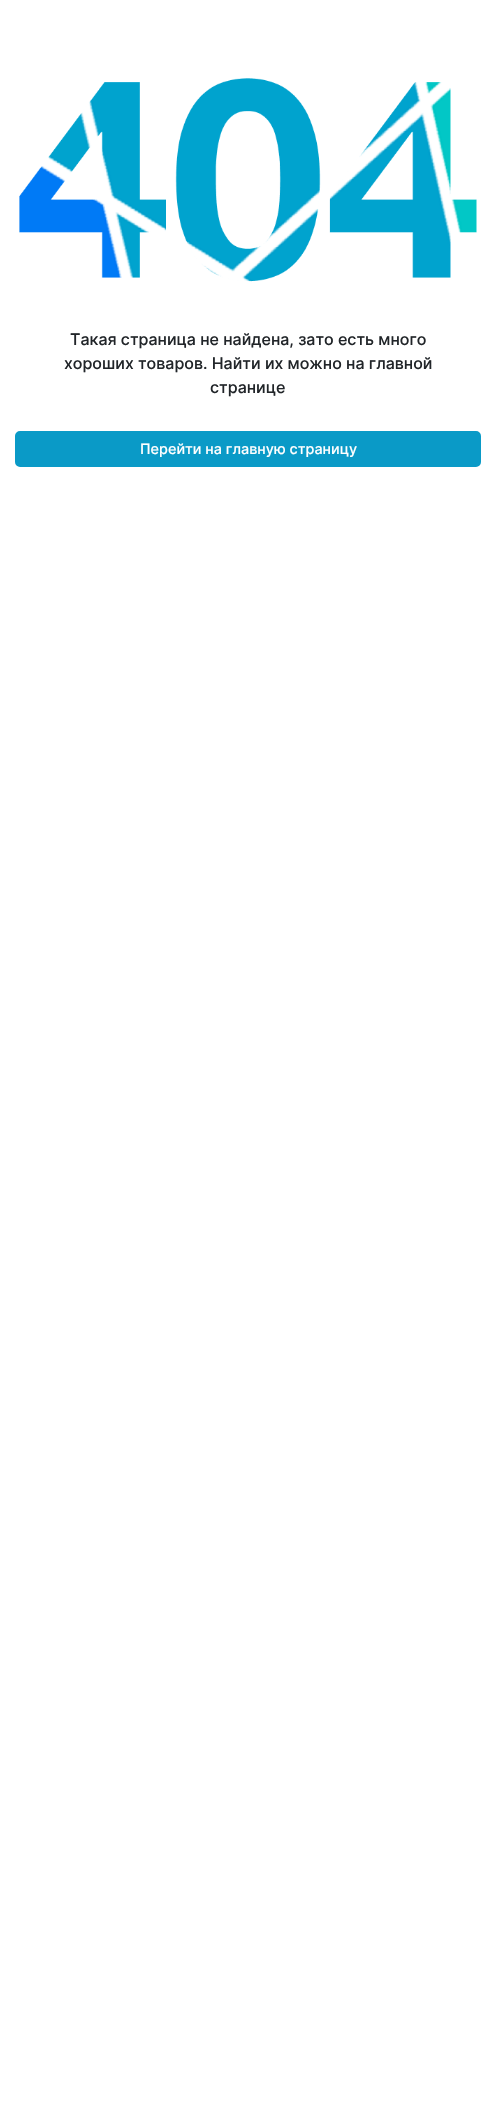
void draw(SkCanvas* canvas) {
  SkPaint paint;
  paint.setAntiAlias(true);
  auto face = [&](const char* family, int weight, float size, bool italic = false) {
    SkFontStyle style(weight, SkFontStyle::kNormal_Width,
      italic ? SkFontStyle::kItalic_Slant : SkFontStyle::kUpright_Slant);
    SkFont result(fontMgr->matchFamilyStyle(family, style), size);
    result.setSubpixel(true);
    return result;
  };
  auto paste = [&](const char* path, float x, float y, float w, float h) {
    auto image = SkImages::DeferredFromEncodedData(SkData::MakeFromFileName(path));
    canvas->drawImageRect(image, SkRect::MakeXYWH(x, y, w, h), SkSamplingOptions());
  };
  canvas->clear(0xffffffff);
  paste("img/1.png", 19, 78, 458, 204);
  paint.setColor(0xff0a9ac7);
  canvas->drawRoundRect(SkRect::MakeXYWH(16, 432, 464, 34), 4, 4, paint);
  paint.setStroke(true);
  paint.setStrokeWidth(2);
  canvas->drawRoundRect(SkRect::MakeXYWH(16, 432, 464, 34), 4, 4, paint);
  auto f0 = face("Inter", 500, 16);
  paint.setStroke(false);
  paint.setColor(0xff212529);
  {
    const struct { const char* s; float x, y; } items[] = {
      {"Такая страница не найдена, зато есть много", 70, 345},
      {"хороших товаров. Найти их можно на главной", 64, 369},
      {"странице", 210, 393},
    };
    for (auto [s, x, y] : items) {
      canvas->drawString(s, x, y, f0, paint);
    }
  }
  auto f1 = face("Inter", 500, 14.4f);
  paint.setColor(0xffffffff);
  canvas->drawString("Перейти на главную страницу", 140, 454, f1, paint);
}
